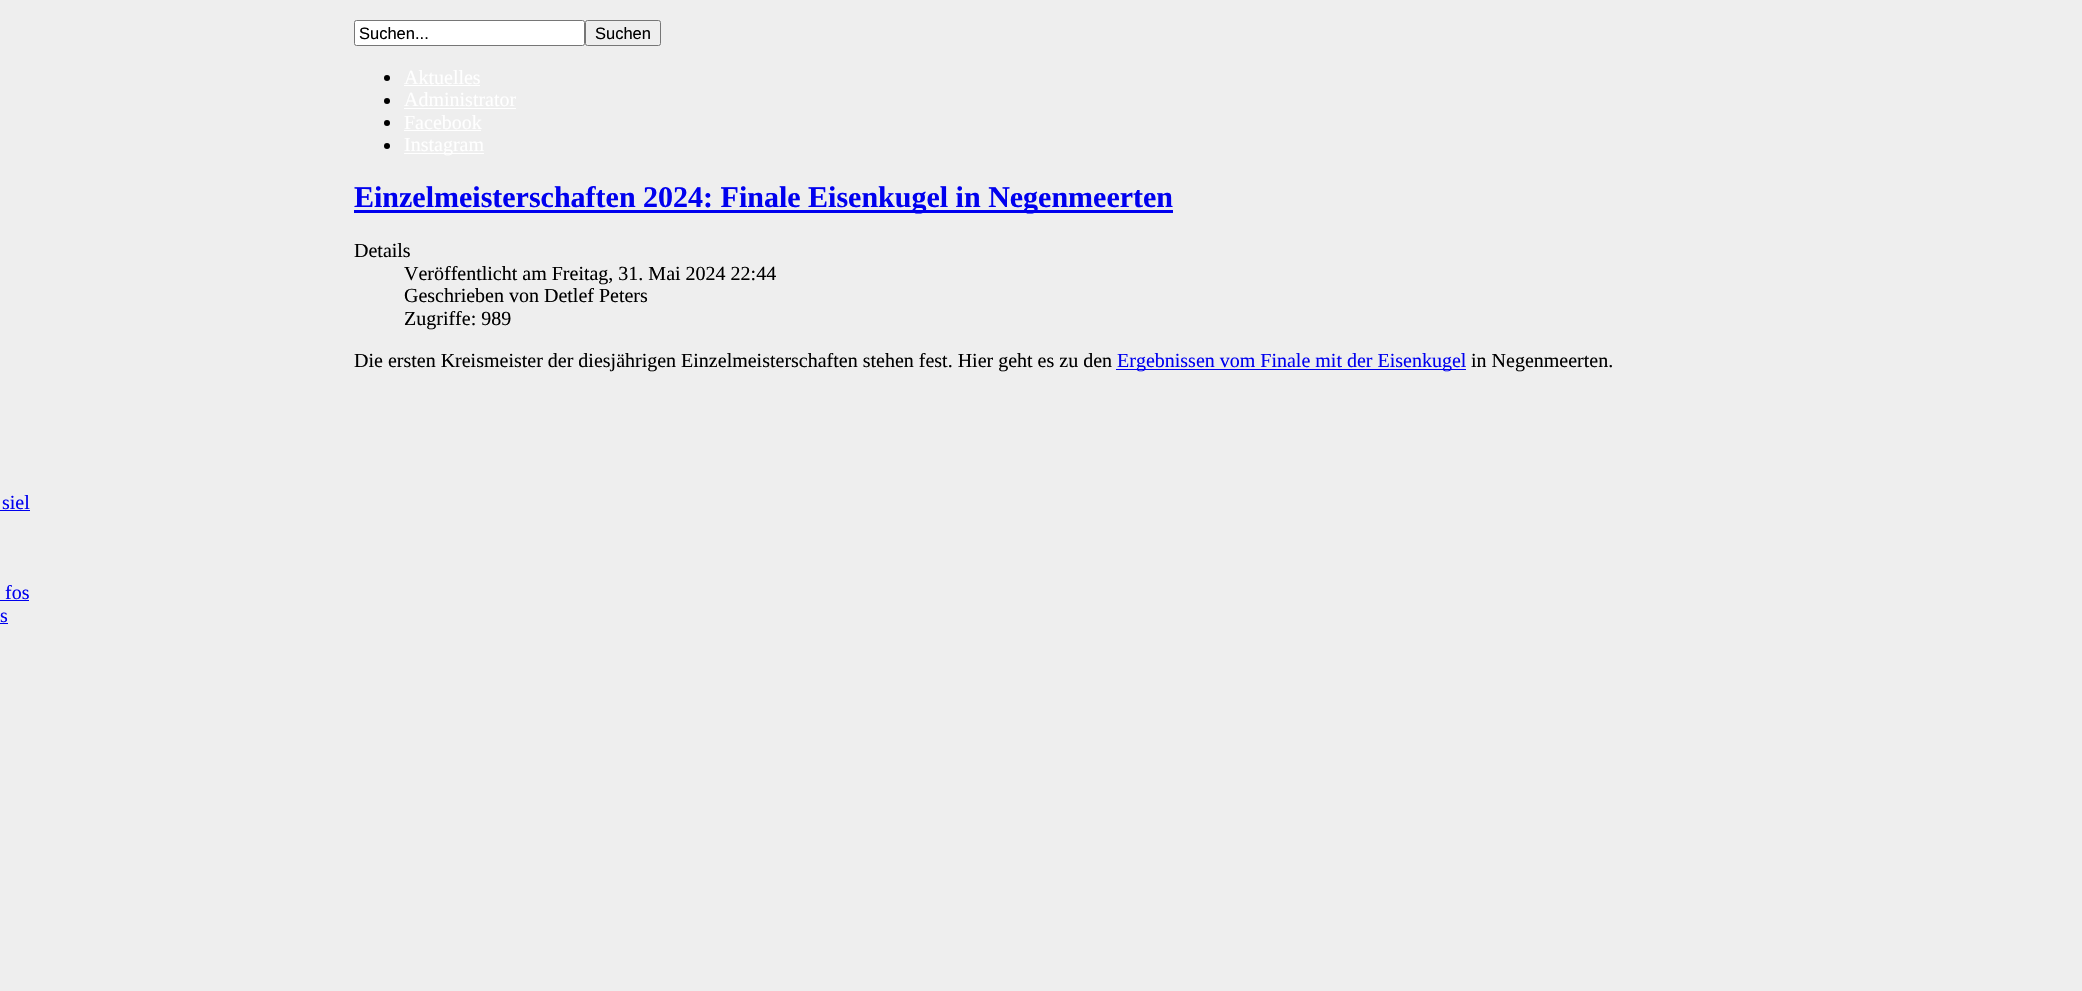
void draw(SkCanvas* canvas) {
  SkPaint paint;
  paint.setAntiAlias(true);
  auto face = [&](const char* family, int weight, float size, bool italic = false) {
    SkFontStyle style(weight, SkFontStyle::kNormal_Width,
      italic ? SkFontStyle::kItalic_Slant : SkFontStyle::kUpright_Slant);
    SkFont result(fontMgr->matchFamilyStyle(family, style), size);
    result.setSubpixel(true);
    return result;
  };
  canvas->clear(0xffeeeeee);
  paint.setColor(0xffffffff);
  canvas->drawRoundRect(SkRect::MakeXYWH(354.5f, 20.5f, 230, 25), 2, 2, paint);
  paint.setStroke(true);
  paint.setStrokeWidth(1);
  paint.setColor(0xff767676);
  canvas->drawRoundRect(SkRect::MakeXYWH(354.5f, 20.5f, 230, 25), 2, 2, paint);
  canvas->drawRoundRect(SkRect::MakeXYWH(585.5f, 20.5f, 75, 25), 2, 2, paint);
  paint.setStroke(false);
  paint.setColor(0xff000000);
  canvas->drawCircle(387, 78, 3, paint);
  paint.setColor(0xffffffff);
  canvas->drawRect(SkRect::MakeXYWH(404, 85, 76, 1), paint);
  paint.setColor(0xff000000);
  canvas->drawCircle(387, 101, 3, paint);
  paint.setColor(0xffffffff);
  canvas->drawRect(SkRect::MakeXYWH(404, 108, 112, 1), paint);
  paint.setColor(0xff000000);
  canvas->drawCircle(387, 123, 3, paint);
  paint.setColor(0xffffffff);
  canvas->drawRect(SkRect::MakeXYWH(404, 130, 77, 1), paint);
  paint.setColor(0xff000000);
  canvas->drawCircle(387, 146, 3, paint);
  {
    const struct { float x, y, w, h; SkColor color; } items[] = {
      {404, 153, 80, 1, 0xffffffff},
      {354, 210, 819, 3, 0xff0000ee},
      {1116, 369, 350, 1, 0xff0000ee},
      {0, 510, 30, 1, 0xff0000ee},
      {0, 600, 29, 1, 0xff0000ee},
      {0, 623, 8, 1, 0xff0000ee},
    };
    for (auto [x, y, w, h, color] : items) {
      paint.setColor(color);
      canvas->drawRect(SkRect::MakeXYWH(x, y, w, h), paint);
    }
  }
  auto f0 = face("Liberation Sans", 400, 16.5f);
  paint.setColor(0xff000000);
  canvas->drawString("Suchen...", 359, 39, f0, paint);
  canvas->drawString("Suchen", 595, 39, f0, paint);
  auto f1 = face("Liberation Serif", 400, 20);
  paint.setColor(0xffffffff);
  {
    const struct { const char* s; float x, y; } items[] = {
      {"Aktuelles", 404, 84},
      {"Administrator", 404, 106},
      {"Facebook", 404, 129},
      {"Instagram", 404, 151},
    };
    for (auto [s, x, y] : items) {
      canvas->drawString(s, x, y, f1, paint);
    }
  }
  auto f2 = face("Liberation Serif", 700, 30);
  paint.setColor(0xff0000ee);
  canvas->drawString("Einzelmeisterschaften 2024: Finale Eisenkugel in Negenmeerten", 354, 207, f2, paint);
  paint.setColor(0xff000000);
  {
    const struct { const char* s; float x, y; } items[] = {
      {"Details", 354, 257},
      {"Veröffentlicht am Freitag, 31. Mai 2024 22:44", 404, 280},
      {"Geschrieben von Detlef Peters", 404, 302},
      {"Zugriffe: 989", 404, 325},
      {"Die ersten Kreismeister der diesjährigen Einzelmeisterschaften stehen fest. Hier geht es zu den", 354, 367},
    };
    for (auto [s, x, y] : items) {
      canvas->drawString(s, x, y, f1, paint);
    }
  }
  paint.setColor(0xff0000ee);
  canvas->drawString("Ergebnissen vom Finale mit der Eisenkugel", 1117, 367, f1, paint);
  paint.setColor(0xff000000);
  canvas->drawString("in Negenmeerten.", 1471, 367, f1, paint);
  paint.setColor(0xff0000ee);
  {
    const struct { const char* s; float x, y; } items[] = {
      {"siel", 2, 509},
      {"fos", 5, 599},
      {"s", 0, 622},
    };
    for (auto [s, x, y] : items) {
      canvas->drawString(s, x, y, f1, paint);
    }
  }
}
